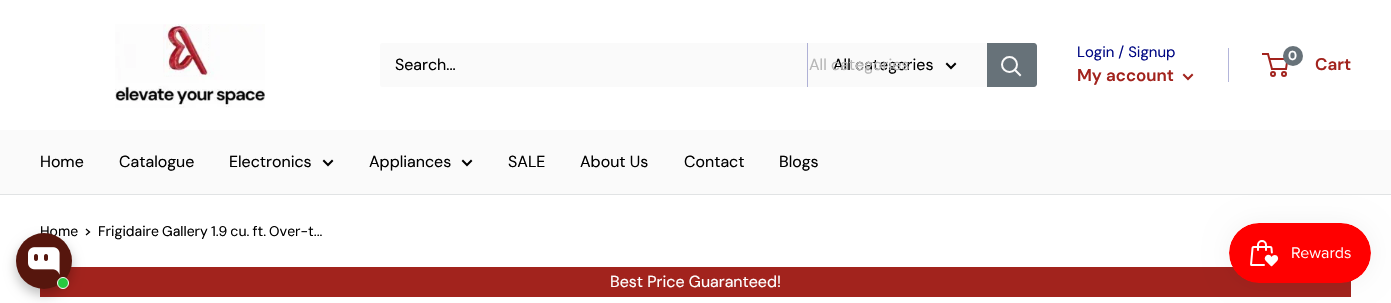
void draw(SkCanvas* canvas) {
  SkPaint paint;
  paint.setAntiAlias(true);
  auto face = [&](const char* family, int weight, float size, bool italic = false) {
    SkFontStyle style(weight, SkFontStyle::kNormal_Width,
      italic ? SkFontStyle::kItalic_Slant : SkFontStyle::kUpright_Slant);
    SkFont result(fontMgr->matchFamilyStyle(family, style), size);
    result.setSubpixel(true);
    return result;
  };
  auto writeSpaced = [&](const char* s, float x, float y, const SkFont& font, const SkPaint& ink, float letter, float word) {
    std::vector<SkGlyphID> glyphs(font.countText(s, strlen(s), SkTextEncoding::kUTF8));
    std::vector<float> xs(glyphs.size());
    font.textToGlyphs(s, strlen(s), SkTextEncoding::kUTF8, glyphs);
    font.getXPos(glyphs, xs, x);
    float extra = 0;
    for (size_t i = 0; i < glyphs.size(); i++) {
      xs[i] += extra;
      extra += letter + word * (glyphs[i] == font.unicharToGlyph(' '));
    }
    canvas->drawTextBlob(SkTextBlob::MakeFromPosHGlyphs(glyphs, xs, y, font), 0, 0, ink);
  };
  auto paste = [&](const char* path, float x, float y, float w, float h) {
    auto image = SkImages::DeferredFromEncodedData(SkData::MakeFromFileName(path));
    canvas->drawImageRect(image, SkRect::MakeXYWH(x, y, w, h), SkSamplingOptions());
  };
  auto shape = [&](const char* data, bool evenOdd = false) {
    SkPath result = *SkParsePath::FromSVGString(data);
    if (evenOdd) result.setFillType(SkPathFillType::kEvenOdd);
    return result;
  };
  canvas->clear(0xffffffff);
  paste("img/1.png", 115, 24, 150, 84);
  paint.setColor(0xfffafafa);
  canvas->drawRoundRect(SkRect::MakeXYWH(380, 43, 657, 44), 3, 3, paint);
  paint.setColor(0xffafb1d6);
  canvas->drawRect(SkRect::MakeXYWH(807, 43, 1, 44), paint);
  paint.setStroke(true);
  paint.setStrokeWidth(2);
  paint.setStrokeCap(SkPaint::kSquare_Cap);
  paint.setColor(0xff000000);
  canvas->drawPath(shape("M955 64L951 68L947 64"), paint);
  paint.setStroke(false);
  paint.setColor(0xff677279);
  canvas->drawPath(shape("M987 43H1034C1035.5 43 1037 44.5 1037 46V84C1037 85.5 1035.5 87 1034 87H987Z"), paint);
  paint.setStroke(true);
  paint.setColor(0xfffafafa);
  canvas->drawPath(shape("M1020 75L1015 70"), paint);
  paint.setStrokeCap(SkPaint::kButt_Cap);
  canvas->drawCircle(1009.5f, 64.5f, 7.5f, paint);
  paint.setStroke(false);
  paint.setColor(0xffb3b5da);
  canvas->drawRect(SkRect::MakeXYWH(1228, 48, 1, 34), paint);
  paint.setStroke(true);
  paint.setStrokeCap(SkPaint::kSquare_Cap);
  paint.setColor(0xffa2231d);
  canvas->drawPath(shape("M1192 75L1188 79L1184 75"), paint);
  paint.setStrokeCap(SkPaint::kButt_Cap);
  canvas->drawCircle(1273, 74, 2, paint);
  canvas->drawCircle(1284, 74, 2, paint);
  canvas->drawPath(shape("M1269.5 59H1287.5L1286 69H1272L1268 54H1262"), paint);
  paint.setStroke(false);
  paint.setColor(0xff677279);
  canvas->drawCircle(1293, 56, 10, paint);
  paint.setColor(0xfffafafa);
  canvas->drawRect(SkRect::MakeXYWH(0, 130, 1391, 64), paint);
  paint.setColor(0xffe1e3e4);
  canvas->drawRect(SkRect::MakeXYWH(0, 194, 1391, 1), paint);
  paint.setStroke(true);
  paint.setStrokeCap(SkPaint::kSquare_Cap);
  paint.setColor(0xff000000);
  canvas->drawPath(shape("M332 161L328 165L324 161"), paint);
  canvas->drawPath(shape("M471 161L467 165L463 161"), paint);
  paint.setStrokeWidth(1.3f);
  canvas->drawPath(shape("M86.5 229.5L89.5 232L86.5 234.5"), paint);
  paint.setStroke(false);
  paint.setColor(0xffa2231d);
  canvas->drawRect(SkRect::MakeXYWH(40, 267, 1311, 30), paint);
  paint.setColor(0x40000000);
  paint.setMaskFilter(SkMaskFilter::MakeBlur(kNormal_SkBlurStyle, 6));
  canvas->drawRoundRect(SkRect::MakeXYWH(16, 239, 56, 56), 28, 28, paint);
  paint.setMaskFilter(nullptr);
  paint.setColor(0x0d000000);
  paint.setMaskFilter(SkMaskFilter::MakeBlur(kNormal_SkBlurStyle, 12.5f));
  canvas->drawRoundRect(SkRect::MakeXYWH(1229, 223, 142, 60), 30, 30, paint);
  paint.setMaskFilter(nullptr);
  paste("img/3.png", 1229, 223, 142, 60);
  auto f0 = face("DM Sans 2", 400, 16);
  paint.setColor(0xff000000);
  canvas->drawString("Search...", 395, 70, f0, paint);
  canvas->drawString("All categories", 833, 70, f0, paint);
  paint.setColor(0xffb7b7b7);
  canvas->drawString("All categories", 809, 70, f0, paint);
  auto f1 = face("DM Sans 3", 400, 15);
  paint.setColor(0xff000883);
  canvas->drawString("Login / Signup", 1077, 57, f1, paint);
  auto f2 = face("DM Sans", 600, 17);
  paint.setColor(0xffa2231d);
  canvas->drawString("My account", 1077, 81, f2, paint);
  auto f3 = face("DM Sans 2", 600, 13);
  paint.setColor(0xffffffff);
  canvas->drawString("0", 1288, 60, f3, paint);
  paint.setColor(0xffa2231d);
  canvas->drawString("Cart", 1315, 70, f2, paint);
  paint.setColor(0xff000000);
  {
    const struct { const char* s; float x, y; } items[] = {
      {"Home", 40, 167},
      {"Catalogue", 119, 167},
      {"Electronics", 229, 167},
      {"Appliances", 369, 167},
      {"SALE", 508, 167},
      {"About Us", 580, 167},
      {"Contact", 684, 167},
      {"Blogs", 779, 167},
    };
    for (auto [s, x, y] : items) {
      canvas->drawString(s, x, y, f0, paint);
    }
  }
  auto f4 = face("DM Sans", 400, 14);
  canvas->drawString("Home", 40, 236, f4, paint);
  paint.setColor(0xff56160d);
  canvas->drawCircle(44, 261, 28, paint);
  paint.setColor(0xff27ca40);
  canvas->drawCircle(63, 283, 5.5f, paint);
  paint.setStroke(true);
  paint.setStrokeWidth(1);
  paint.setStrokeCap(SkPaint::kButt_Cap);
  paint.setColor(0xffffffff);
  canvas->drawCircle(63, 283, 5.5f, paint);
  paste("img/2.png", 28, 247, 32, 28);
  paint.setStroke(false);
  paint.setColor(0xff000000);
  writeSpaced("Frigidaire Gallery 1.9 cu. ft. Over-t...", 98, 236, f4, paint, 0, -0.75f);
  paint.setColor(0xffffffff);
  canvas->drawString("Best Price Guaranteed!", 610, 287, f0, paint);
}
